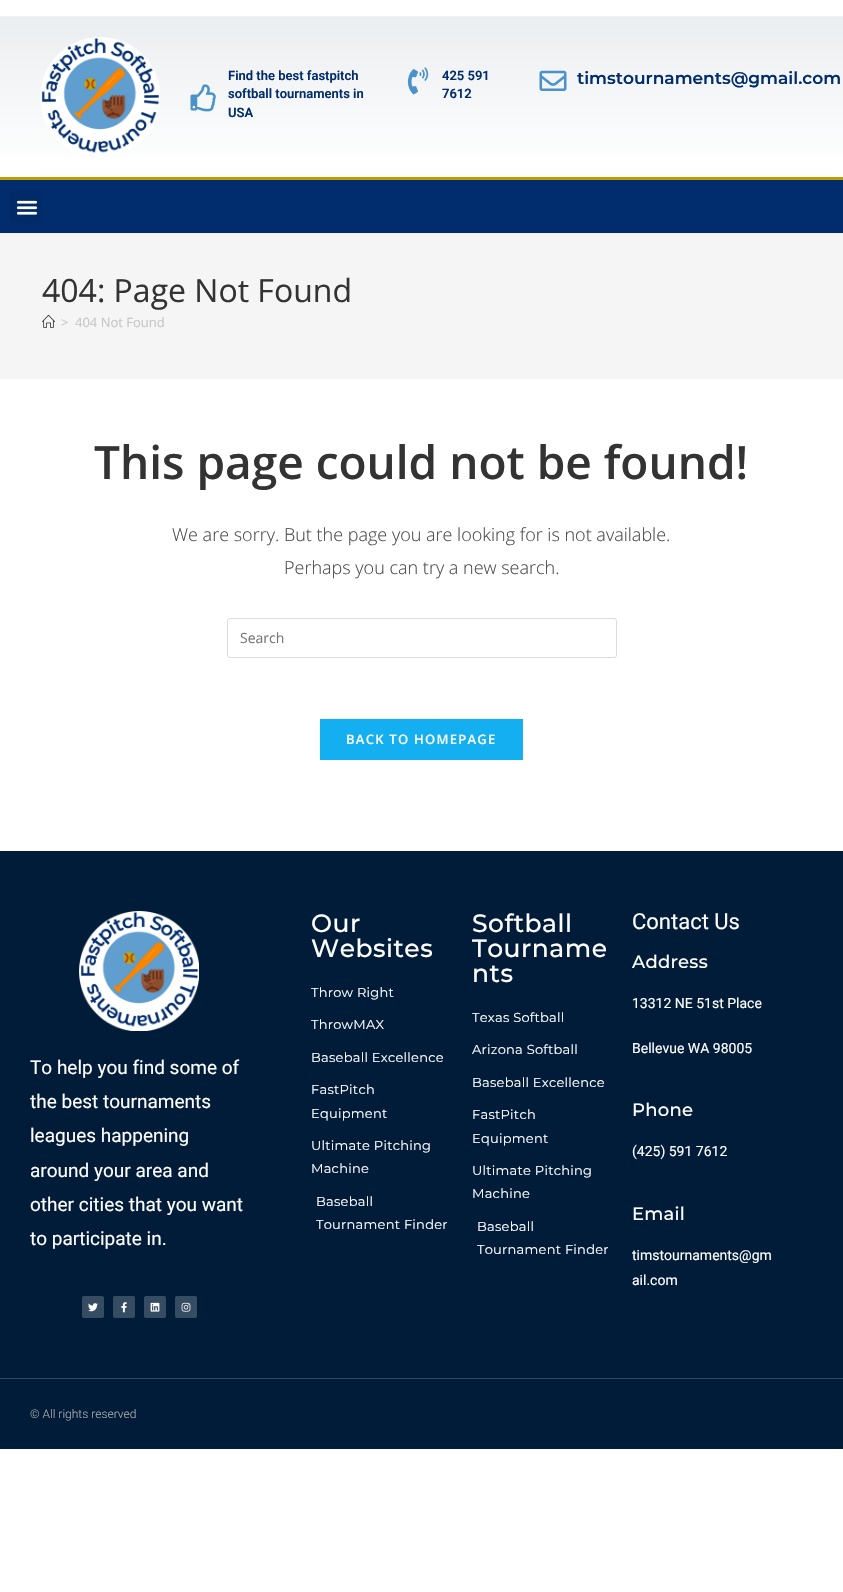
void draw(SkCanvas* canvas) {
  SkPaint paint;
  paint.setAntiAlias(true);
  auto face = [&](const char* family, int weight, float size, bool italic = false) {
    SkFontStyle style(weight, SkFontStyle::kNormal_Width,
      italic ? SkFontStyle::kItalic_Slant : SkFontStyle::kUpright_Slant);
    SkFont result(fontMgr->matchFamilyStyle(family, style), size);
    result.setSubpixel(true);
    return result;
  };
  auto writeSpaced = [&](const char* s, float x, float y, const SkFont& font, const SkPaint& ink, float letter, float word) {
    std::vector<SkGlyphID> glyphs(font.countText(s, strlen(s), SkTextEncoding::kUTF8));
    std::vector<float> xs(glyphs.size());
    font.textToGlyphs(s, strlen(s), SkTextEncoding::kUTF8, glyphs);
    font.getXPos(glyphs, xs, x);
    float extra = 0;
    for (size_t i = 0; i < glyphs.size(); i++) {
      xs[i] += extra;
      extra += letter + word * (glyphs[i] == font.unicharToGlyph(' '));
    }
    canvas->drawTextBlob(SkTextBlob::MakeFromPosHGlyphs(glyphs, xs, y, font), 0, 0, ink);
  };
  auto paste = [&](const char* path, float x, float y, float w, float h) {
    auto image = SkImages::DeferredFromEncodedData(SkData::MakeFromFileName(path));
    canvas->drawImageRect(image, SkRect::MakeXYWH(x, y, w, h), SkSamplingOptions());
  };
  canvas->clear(0xffffffff);
  paint.setColor(0xfff1f1f1);
  canvas->drawRect(SkRect::MakeXYWH(0, 16, 843, 1), paint);
  canvas->drawRect(SkRect::MakeXYWH(0, 233, 843, 1), paint);
  {
    const SkColor colors[] = {0xffebeef0, 0xffffffff};
    const float stops[] = {0, 1};
    const SkPoint ends[] = {{422, 17}, {422, 177}};
    paint.setShader(SkGradientShader::MakeLinear(ends, colors, stops, 2, SkTileMode::kClamp));
    paint.setAlpha(255);
  }
  canvas->drawRect(SkRect::MakeXYWH(0, 17, 843, 140), paint);
  paste("img/1.png", 40, 37, 120, 116);
  paste("img/2.png", 190, 84, 26, 28);
  paste("img/3.png", 407, 67, 22, 28);
  paste("img/4.png", 539, 70, 28, 21);
  paint.setShader(nullptr);
  paint.setColor(0xff012c6d);
  canvas->drawRect(SkRect::MakeXYWH(0, 180, 843, 53), paint);
  paint.setColor(0xffbf9f00);
  canvas->drawRect(SkRect::MakeXYWH(0, 177, 843, 3), paint);
  paint.setColor(0xff012a68);
  canvas->drawRoundRect(SkRect::MakeXYWH(10, 190, 33, 33), 3, 3, paint);
  paste("img/5.png", 16, 200, 22, 15);
  paint.setColor(0xfff5f5f5);
  canvas->drawRect(SkRect::MakeXYWH(0, 234, 843, 145), paint);
  paste("img/6.png", 42, 314, 13, 14);
  paint.setStroke(true);
  paint.setStrokeWidth(1);
  paint.setColor(0xffdddddd);
  canvas->drawRoundRect(SkRect::MakeXYWH(227.5f, 618.5f, 389, 39), 2.5f, 2.5f, paint);
  paint.setStroke(false);
  paint.setColor(0xff13aff0);
  canvas->drawRect(SkRect::MakeXYWH(320, 719, 203, 41), paint);
  paint.setColor(0xff001c38);
  canvas->drawRect(SkRect::MakeXYWH(0, 851, 843, 527), paint);
  paste("img/7.png", 79, 911, 120, 120);
  paint.setColor(0xff364c62);
  canvas->drawRoundRect(SkRect::MakeXYWH(82, 1296, 22, 22), 2, 2, paint);
  paste("img/8.png", 88, 1303, 10, 9);
  canvas->drawRoundRect(SkRect::MakeXYWH(113, 1296, 22, 22), 2, 2, paint);
  paste("img/9.png", 121, 1302, 6, 11);
  canvas->drawRoundRect(SkRect::MakeXYWH(144, 1296, 22, 22), 2, 2, paint);
  paste("img/10.png", 150, 1302, 10, 10);
  canvas->drawRoundRect(SkRect::MakeXYWH(175, 1296, 22, 22), 2, 2, paint);
  paste("img/11.png", 181, 1302, 10, 10);
  paint.setColor(0xff001c38);
  canvas->drawRect(SkRect::MakeXYWH(0, 1379, 843, 70), paint);
  paint.setColor(0xff30475e);
  canvas->drawRect(SkRect::MakeXYWH(0, 1378, 843, 1), paint);
  auto f0 = face("Roboto", 600, 13);
  paint.setColor(0xff012c6d);
  {
    const struct { const char* s; float x, y; } items[] = {
      {"Find the best fastpitch", 228, 80},
      {"softball tournaments in", 228, 98},
      {"USA", 228, 117},
      {"425 591", 442, 80},
      {"7612", 442, 98},
    };
    for (auto [s, x, y] : items) {
      canvas->drawString(s, x, y, f0, paint);
    }
  }
  auto f1 = face("Montserrat", 600, 17);
  canvas->drawString("timstournaments@gmail.com", 577, 84, f1, paint);
  auto f2 = face("Open Sans", 400, 32);
  paint.setColor(0xff333333);
  canvas->drawString("404: Page Not Found", 42, 302, f2, paint);
  auto f3 = face("Open Sans", 400, 13);
  paint.setColor(0xffc6c6c6);
  canvas->drawString(">", 61, 327, f3, paint);
  canvas->drawString("404 Not Found", 75, 327, f3, paint);
  auto f4 = face("Open Sans", 600, 46);
  paint.setColor(0xff333333);
  canvas->drawString("This page could not be found!", 94, 479, f4, paint);
  auto f5 = face("Open Sans", 300, 18);
  paint.setColor(0xff4a4a4a);
  canvas->drawString("We are sorry. But the page you are looking for is not available.", 172, 541, f5, paint);
  canvas->drawString("Perhaps you can try a new search.", 284, 574, f5, paint);
  auto f6 = face("Open Sans", 400, 14);
  paint.setColor(0xff757575);
  canvas->drawString("Search", 240, 643, f6, paint);
  auto f7 = face("Open Sans", 600, 13);
  paint.setColor(0xffffffff);
  writeSpaced("BACK TO HOMEPAGE", 346, 744, f7, paint, 1.25f, 0);
  auto f8 = face("Roboto", 400, 19);
  {
    const struct { const char* s; float x, y; } items[] = {
      {"To help you find some of", 30, 1074},
      {"the best tournaments", 30, 1108},
      {"leagues happening", 30, 1142},
      {"around your area and", 30, 1177},
      {"other cities that you want", 30, 1211},
      {"to participate in.", 30, 1245},
    };
    for (auto [s, x, y] : items) {
      canvas->drawString(s, x, y, f8, paint);
    }
  }
  auto f9 = face("Montserrat", 500, 25);
  writeSpaced("Our", 311, 932, f9, paint, 0.5f, 0);
  writeSpaced("Websites", 311, 957, f9, paint, 0.5f, 0);
  auto f10 = face("Montserrat", 400, 13);
  {
    const struct { const char* s; float x, y; } items[] = {
      {"Throw Right", 311, 997},
      {"ThrowMAX", 311, 1029},
      {"Baseball Excellence", 311, 1062},
      {"FastPitch", 311, 1094},
      {"Equipment", 311, 1118},
      {"Ultimate Pitching", 311, 1150},
      {"Machine", 311, 1173},
      {"Baseball", 316, 1206},
      {"Tournament Finder", 316, 1229},
    };
    for (auto [s, x, y] : items) {
      writeSpaced(s, x, y, f10, paint, 0.25f, 0);
    }
  }
  {
    const struct { const char* s; float x, y; } items[] = {
      {"Softball", 472, 932},
      {"Tourname", 472, 957},
      {"nts", 472, 982},
    };
    for (auto [s, x, y] : items) {
      writeSpaced(s, x, y, f9, paint, 0.5f, 0);
    }
  }
  {
    const struct { const char* s; float x, y; } items[] = {
      {"Texas Softball", 472, 1022},
      {"Arizona Softball", 472, 1054},
      {"Baseball Excellence", 472, 1087},
      {"FastPitch", 472, 1119},
      {"Equipment", 472, 1143},
      {"Ultimate Pitching", 472, 1175},
      {"Machine", 472, 1198},
      {"Baseball", 477, 1231},
      {"Tournament Finder", 477, 1254},
    };
    for (auto [s, x, y] : items) {
      writeSpaced(s, x, y, f10, paint, 0.25f, 0);
    }
  }
  auto f11 = face("Roboto", 400, 22);
  canvas->drawString("Contact Us", 632, 929, f11, paint);
  auto f12 = face("Montserrat", 500, 18);
  writeSpaced("Address", 632, 968, f12, paint, 0.25f, 0);
  auto f13 = face("Roboto", 400, 14);
  canvas->drawString("13312 NE 51st Place", 632, 1008, f13, paint);
  canvas->drawString("Bellevue WA 98005", 632, 1053, f13, paint);
  writeSpaced("Phone", 632, 1116, f12, paint, 0.25f, 0);
  canvas->drawString("(425) 591 7612", 632, 1156, f13, paint);
  writeSpaced("Email", 632, 1220, f12, paint, 0.25f, 0);
  canvas->drawString("timstournaments@gm", 632, 1260, f13, paint);
  canvas->drawString("ail.com", 632, 1285, f13, paint);
  auto f14 = face("Roboto", 300, 12);
  paint.setColor(0xffadadad);
  canvas->drawString("© All rights reserved", 30, 1418, f14, paint);
}
